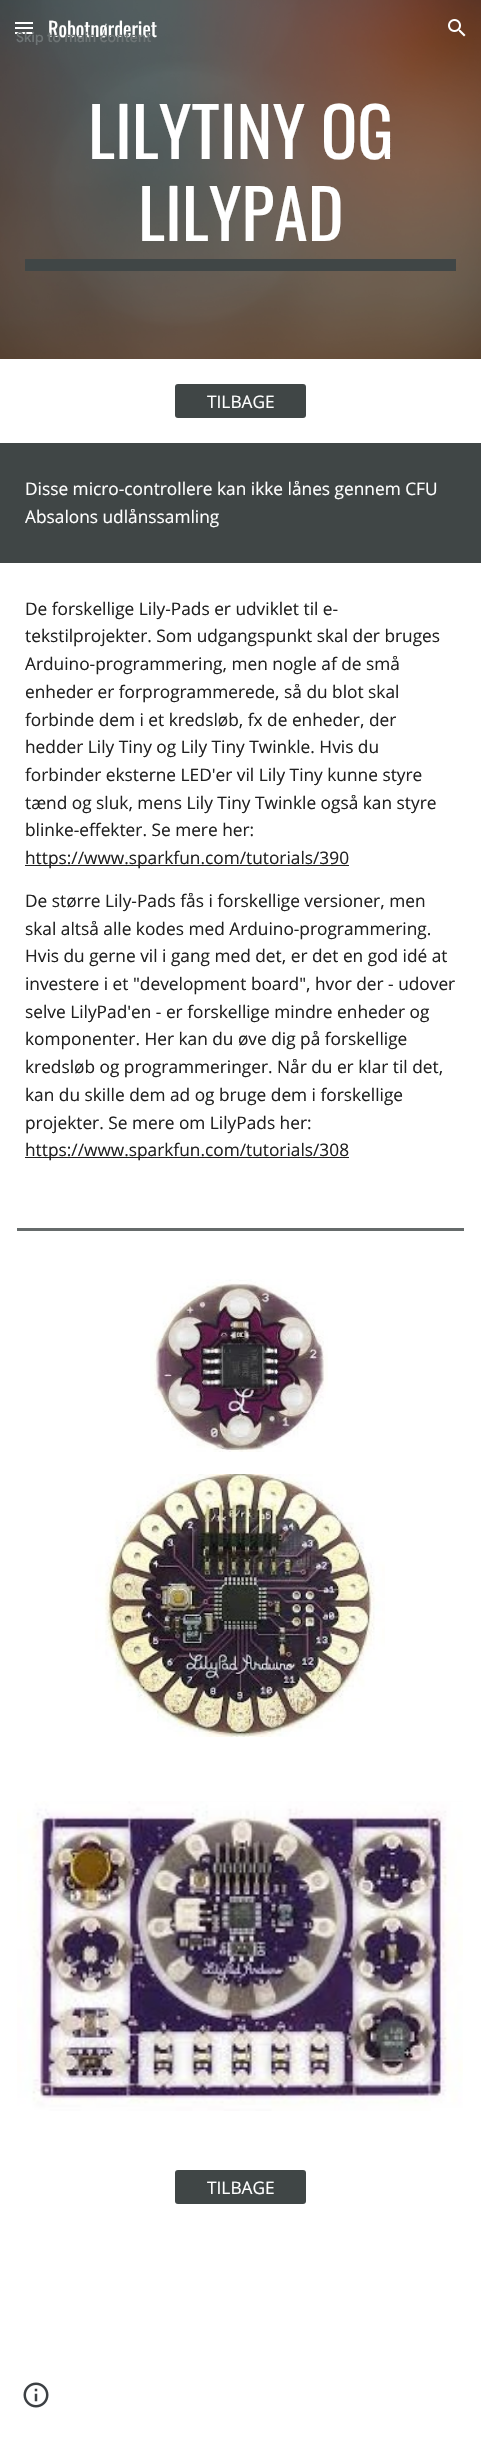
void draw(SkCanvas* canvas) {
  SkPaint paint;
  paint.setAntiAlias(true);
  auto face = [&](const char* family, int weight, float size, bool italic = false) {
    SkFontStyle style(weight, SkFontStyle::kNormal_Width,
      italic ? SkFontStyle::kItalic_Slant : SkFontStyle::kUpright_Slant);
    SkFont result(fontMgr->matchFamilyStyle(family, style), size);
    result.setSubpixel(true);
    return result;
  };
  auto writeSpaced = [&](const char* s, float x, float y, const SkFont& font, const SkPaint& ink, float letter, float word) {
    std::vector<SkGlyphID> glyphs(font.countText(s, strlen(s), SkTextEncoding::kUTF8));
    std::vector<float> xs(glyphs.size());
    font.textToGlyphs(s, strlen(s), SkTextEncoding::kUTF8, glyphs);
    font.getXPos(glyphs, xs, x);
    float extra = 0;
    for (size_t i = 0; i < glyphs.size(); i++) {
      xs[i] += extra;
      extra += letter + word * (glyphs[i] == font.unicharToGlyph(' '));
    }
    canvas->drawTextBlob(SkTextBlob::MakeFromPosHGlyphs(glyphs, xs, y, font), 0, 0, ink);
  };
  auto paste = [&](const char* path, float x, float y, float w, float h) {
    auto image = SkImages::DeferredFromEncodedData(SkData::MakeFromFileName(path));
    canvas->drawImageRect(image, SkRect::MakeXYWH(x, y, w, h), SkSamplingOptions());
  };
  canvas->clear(0xffffffff);
  paste("img/2.png", 0, 0, 481, 359);
  {
    const struct { float x, y, w, h; SkColor color; } items[] = {
      {15, 22, 18, 2, 0xffffffff},
      {15, 27, 18, 2, 0xffffffff},
      {15, 32, 18, 2, 0xffffffff},
    };
    for (auto [x, y, w, h, color] : items) {
      paint.setColor(color);
      canvas->drawRect(SkRect::MakeXYWH(x, y, w, h), paint);
    }
  }
  paste("img/1.png", 448, 19, 18, 18);
  paint.setColor(0xff404646);
  canvas->drawRect(SkRect::MakeXYWH(25, 259, 431, 12), paint);
  canvas->drawRoundRect(SkRect::MakeXYWH(175, 384, 131, 34), 3, 3, paint);
  {
    const struct { float x, y, w, h; SkColor color; } items[] = {
      {0, 443, 481, 120, 0xff404646},
      {25, 865, 324, 1, 0xff212121},
      {25, 1157, 324, 1, 0xff212121},
      {17, 1228, 447, 3, 0xff666b6b},
    };
    for (auto [x, y, w, h, color] : items) {
      paint.setColor(color);
      canvas->drawRect(SkRect::MakeXYWH(x, y, w, h), paint);
    }
  }
  paste("img/3.png", 150, 1279, 178, 173);
  paste("img/4.png", 95, 1474, 290, 263);
  paste("img/5.png", 17, 1801, 446, 310);
  paint.setColor(0xff404646);
  canvas->drawRoundRect(SkRect::MakeXYWH(175, 2170, 131, 34), 3, 3, paint);
  paste("img/6.png", 23, 2382, 26, 26);
  auto f0 = face("Oswald", 400, 20);
  paint.setColor(0xffffffff);
  canvas->drawString("Robotnørderiet", 48, 37, f0, paint);
  auto f1 = face("Oswald", 400, 68);
  canvas->drawString("LILYTINY OG", 88, 159, f1, paint);
  canvas->drawString("LILYPAD", 138, 241, f1, paint);
  auto f2 = face("Open Sans", 400, 17.3f);
  {
    const struct { const char* s; float x, y; } items[] = {
      {"TILBAGE", 207, 408},
      {"Disse micro-controllere kan ikke lånes gennem CFU", 25, 495},
      {"Absalons udlånssamling", 25, 523},
    };
    for (auto [s, x, y] : items) {
      canvas->drawString(s, x, y, f2, paint);
    }
  }
  paint.setColor(0xff212121);
  {
    const struct { const char* s; float x, y; } items[] = {
      {"De forskellige Lily-Pads er udviklet til e-", 25, 615},
      {"tekstilprojekter. Som udgangspunkt skal der bruges", 25, 642},
      {"Arduino-programmering, men nogle af de små", 25, 670},
      {"enheder er forprogrammerede, så du blot skal", 25, 698},
      {"forbinde dem i et kredsløb, fx de enheder, der", 25, 726},
      {"hedder Lily Tiny og Lily Tiny Twinkle. Hvis du", 25, 753},
      {"forbinder eksterne LED'er vil Lily Tiny kunne styre", 25, 781},
      {"tænd og sluk, mens Lily Tiny Twinkle også kan styre", 25, 809},
      {"blinke-effekter. Se mere her:", 25, 836},
      {"https://www.sparkfun.com/tutorials/390", 25, 864},
      {"De større Lily-Pads fås i forskellige versioner, men", 25, 907},
      {"skal altså alle kodes med Arduino-programmering.", 25, 935},
      {"Hvis du gerne vil i gang med det, er det en god idé at", 25, 962},
      {"investere i et \"development board\", hvor der - udover", 25, 990},
      {"selve LilyPad'en - er forskellige mindre enheder og", 25, 1018},
      {"komponenter. Her kan du øve dig på forskellige", 25, 1045},
      {"kredsløb og programmeringer. Når du er klar til det,", 25, 1073},
      {"kan du skille dem ad og bruge dem i forskellige", 25, 1101},
      {"projekter. Se mere om LilyPads her:", 25, 1129},
      {"https://www.sparkfun.com/tutorials/308", 25, 1156},
    };
    for (auto [s, x, y] : items) {
      canvas->drawString(s, x, y, f2, paint);
    }
  }
  paint.setColor(0xffffffff);
  canvas->drawString("TILBAGE", 207, 2194, f2, paint);
  auto f3 = face("Google Sans", 500, 14);
  paint.setColor(0xff6e7475);
  writeSpaced("Skip to main content", 16, 42, f3, paint, 0.1f, 0);
}
